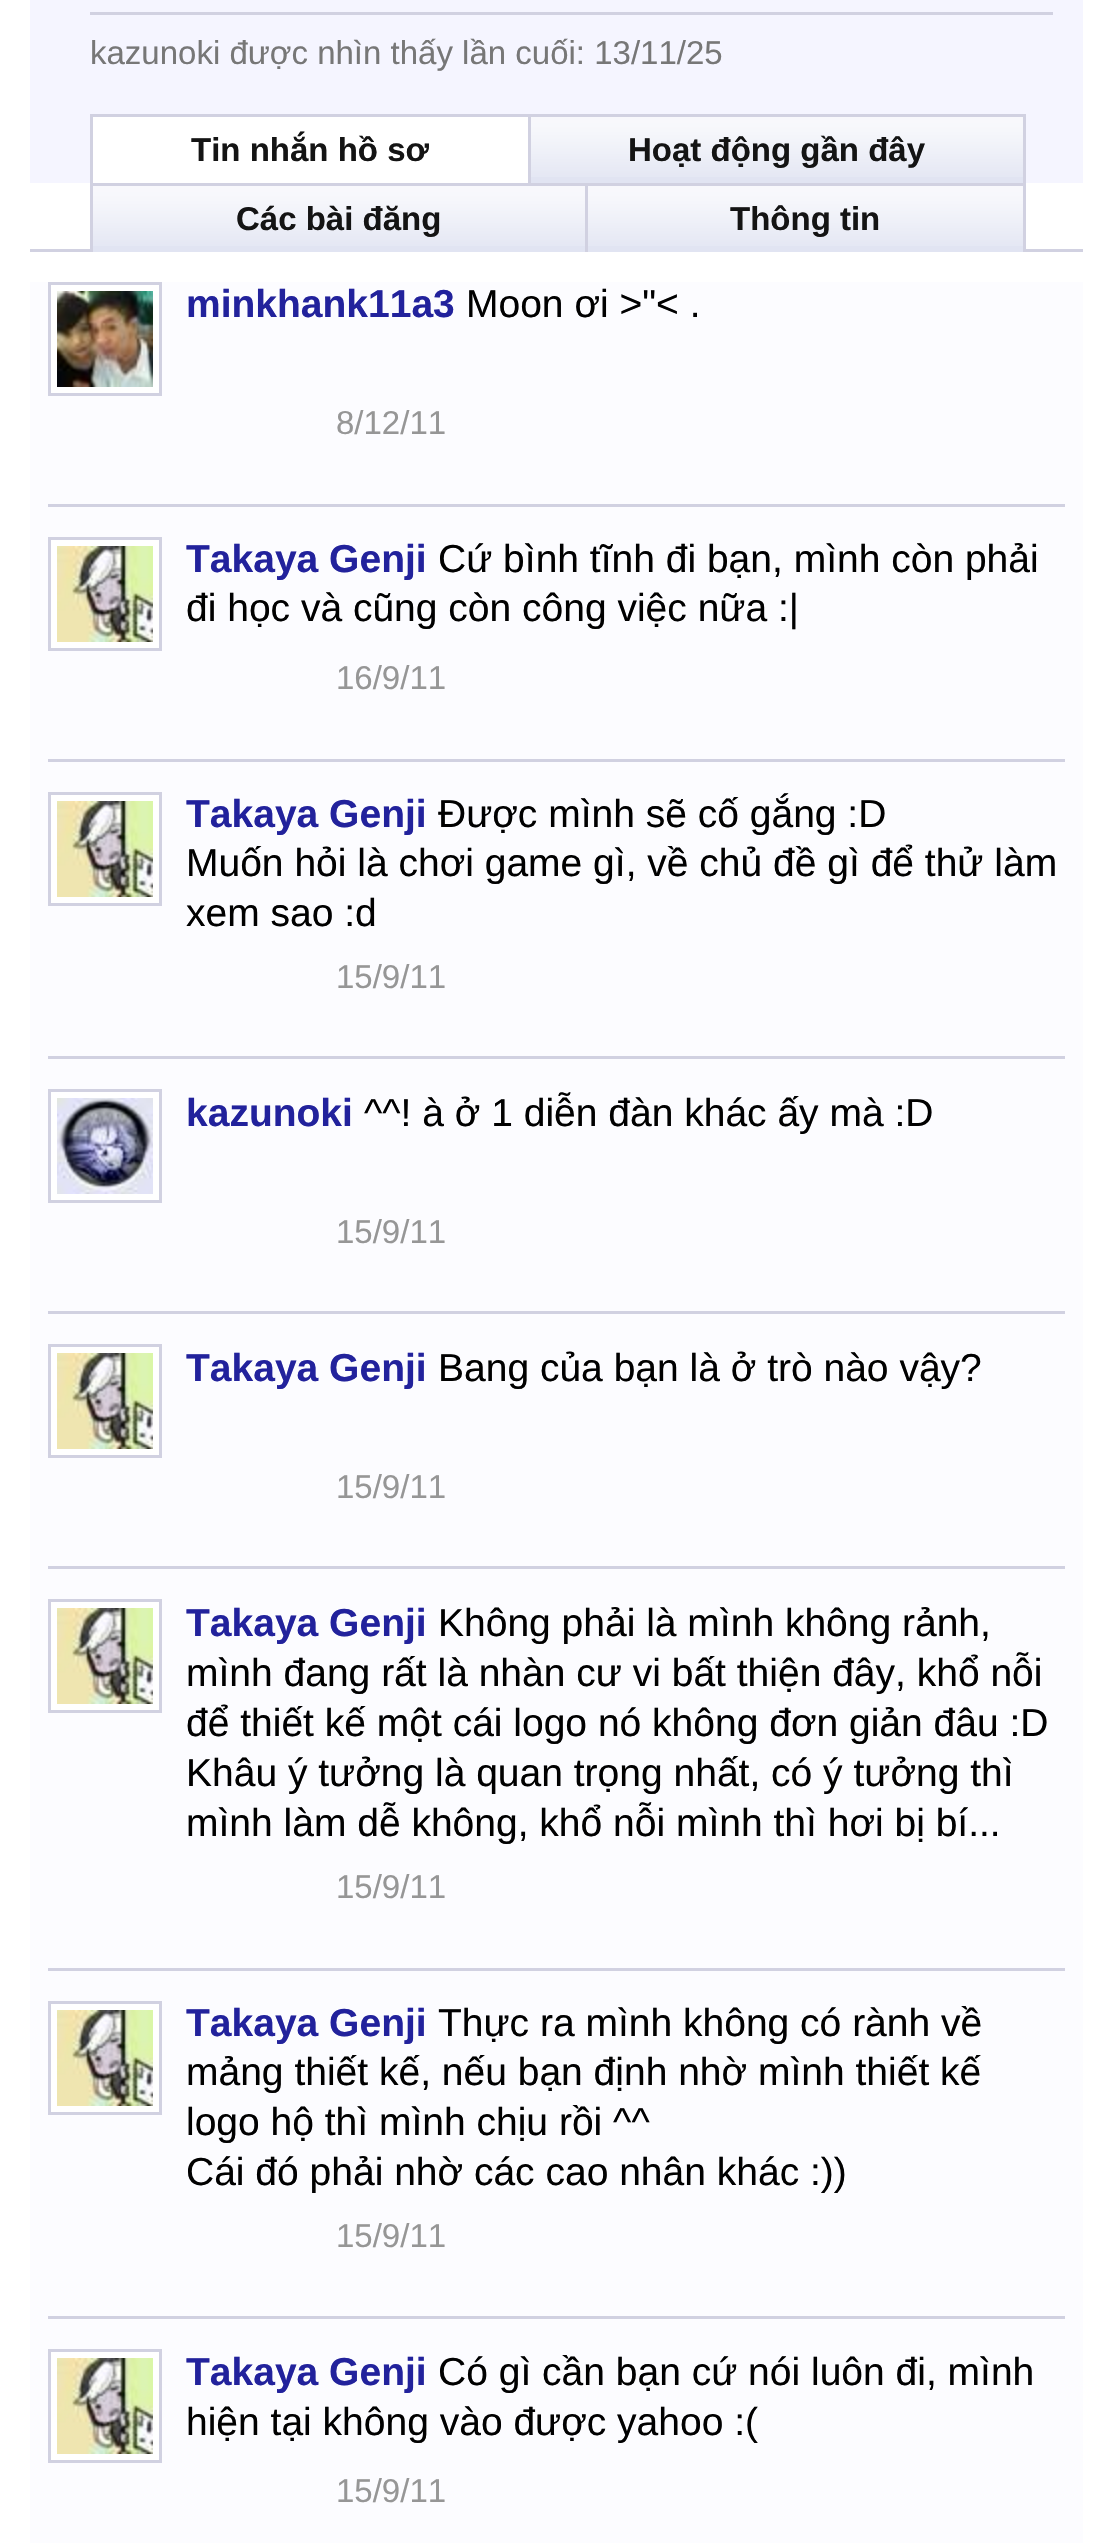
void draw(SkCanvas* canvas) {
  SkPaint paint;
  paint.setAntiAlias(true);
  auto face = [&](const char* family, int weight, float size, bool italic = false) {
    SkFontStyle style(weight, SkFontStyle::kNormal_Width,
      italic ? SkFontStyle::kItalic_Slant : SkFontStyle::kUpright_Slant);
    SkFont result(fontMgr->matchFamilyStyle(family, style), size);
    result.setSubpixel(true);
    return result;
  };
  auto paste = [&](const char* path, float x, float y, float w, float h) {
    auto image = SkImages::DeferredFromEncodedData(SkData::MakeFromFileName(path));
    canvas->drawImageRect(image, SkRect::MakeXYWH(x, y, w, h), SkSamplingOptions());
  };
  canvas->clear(0xffffffff);
  {
    const struct { float x, y, w, h; SkColor color; } items[] = {
      {30, 0, 1053, 183, 0xfff5f5ff},
      {90, 12, 963, 3, 0xffd1d1e1},
      {30, 249, 1053, 3, 0xffd1d1e1},
      {93, 117, 435, 66, 0xffffffff},
      {90, 114, 936, 3, 0xffd1d1e1},
      {90, 114, 3, 72, 0xffd1d1e1},
      {531, 117, 492, 66, 0xffe1e4f2},
    };
    for (auto [x, y, w, h, color] : items) {
      paint.setColor(color);
      canvas->drawRect(SkRect::MakeXYWH(x, y, w, h), paint);
    }
  }
  paste("img/1.png", 531, 117, 492, 60);
  {
    const struct { float x, y, w, h; SkColor color; } items[] = {
      {1023, 114, 3, 69, 0xffd1d1e1},
      {528, 114, 3, 69, 0xffd1d1e1},
      {93, 186, 492, 66, 0xffe1e4f2},
    };
    for (auto [x, y, w, h, color] : items) {
      paint.setColor(color);
      canvas->drawRect(SkRect::MakeXYWH(x, y, w, h), paint);
    }
  }
  paste("img/1.png", 93, 186, 492, 60);
  {
    const struct { float x, y, w, h; SkColor color; } items[] = {
      {90, 183, 936, 3, 0xffd1d1e1},
      {90, 183, 3, 69, 0xffd1d1e1},
      {588, 186, 435, 66, 0xffe1e4f2},
    };
    for (auto [x, y, w, h, color] : items) {
      paint.setColor(color);
      canvas->drawRect(SkRect::MakeXYWH(x, y, w, h), paint);
    }
  }
  paste("img/2.png", 588, 186, 435, 60);
  {
    const struct { float x, y, w, h; SkColor color; } items[] = {
      {1023, 183, 3, 69, 0xffd1d1e1},
      {585, 183, 3, 69, 0xffd1d1e1},
      {30, 282, 1053, 2261, 0xfffcfcff},
      {48, 504, 1017, 3, 0xffd1d1e1},
    };
    for (auto [x, y, w, h, color] : items) {
      paint.setColor(color);
      canvas->drawRect(SkRect::MakeXYWH(x, y, w, h), paint);
    }
  }
  paint.setColor(0xffffffff);
  canvas->drawRect(SkRect::MakeXYWH(49.5f, 283.5f, 111, 111), paint);
  paint.setStroke(true);
  paint.setStrokeWidth(3);
  paint.setColor(0xffd1d1e1);
  canvas->drawRect(SkRect::MakeXYWH(49.5f, 283.5f, 111, 111), paint);
  paste("img/3.png", 57, 291, 96, 96);
  paint.setStroke(false);
  canvas->drawRect(SkRect::MakeXYWH(48, 759, 1017, 3), paint);
  paint.setColor(0xffffffff);
  canvas->drawRect(SkRect::MakeXYWH(49.5f, 538.5f, 111, 111), paint);
  paint.setStroke(true);
  paint.setColor(0xffd1d1e1);
  canvas->drawRect(SkRect::MakeXYWH(49.5f, 538.5f, 111, 111), paint);
  paste("img/4.png", 57, 546, 96, 96);
  paint.setStroke(false);
  canvas->drawRect(SkRect::MakeXYWH(48, 1056, 1017, 3), paint);
  paint.setColor(0xffffffff);
  canvas->drawRect(SkRect::MakeXYWH(49.5f, 793.5f, 111, 111), paint);
  paint.setStroke(true);
  paint.setColor(0xffd1d1e1);
  canvas->drawRect(SkRect::MakeXYWH(49.5f, 793.5f, 111, 111), paint);
  paste("img/4.png", 57, 801, 96, 96);
  paint.setStroke(false);
  canvas->drawRect(SkRect::MakeXYWH(48, 1311, 1017, 3), paint);
  paint.setColor(0xffffffff);
  canvas->drawRect(SkRect::MakeXYWH(49.5f, 1090.5f, 111, 111), paint);
  paint.setStroke(true);
  paint.setColor(0xffd1d1e1);
  canvas->drawRect(SkRect::MakeXYWH(49.5f, 1090.5f, 111, 111), paint);
  paste("img/5.png", 57, 1098, 96, 96);
  paint.setStroke(false);
  canvas->drawRect(SkRect::MakeXYWH(48, 1566, 1017, 3), paint);
  paint.setColor(0xffffffff);
  canvas->drawRect(SkRect::MakeXYWH(49.5f, 1345.5f, 111, 111), paint);
  paint.setStroke(true);
  paint.setColor(0xffd1d1e1);
  canvas->drawRect(SkRect::MakeXYWH(49.5f, 1345.5f, 111, 111), paint);
  paste("img/4.png", 57, 1353, 96, 96);
  paint.setStroke(false);
  canvas->drawRect(SkRect::MakeXYWH(48, 1968, 1017, 3), paint);
  paint.setColor(0xffffffff);
  canvas->drawRect(SkRect::MakeXYWH(49.5f, 1600.5f, 111, 111), paint);
  paint.setStroke(true);
  paint.setColor(0xffd1d1e1);
  canvas->drawRect(SkRect::MakeXYWH(49.5f, 1600.5f, 111, 111), paint);
  paste("img/4.png", 57, 1608, 96, 96);
  paint.setStroke(false);
  canvas->drawRect(SkRect::MakeXYWH(48, 2316, 1017, 3), paint);
  paint.setColor(0xffffffff);
  canvas->drawRect(SkRect::MakeXYWH(49.5f, 2002.5f, 111, 111), paint);
  paint.setStroke(true);
  paint.setColor(0xffd1d1e1);
  canvas->drawRect(SkRect::MakeXYWH(49.5f, 2002.5f, 111, 111), paint);
  paste("img/4.png", 57, 2010, 96, 96);
  paint.setStroke(false);
  paint.setColor(0xffffffff);
  canvas->drawRect(SkRect::MakeXYWH(49.5f, 2350.5f, 111, 111), paint);
  paint.setStroke(true);
  paint.setColor(0xffd1d1e1);
  canvas->drawRect(SkRect::MakeXYWH(49.5f, 2350.5f, 111, 111), paint);
  paste("img/4.png", 57, 2358, 96, 96);
  auto f0 = face("Liberation Sans", 400, 33);
  paint.setStroke(false);
  paint.setColor(0xff777777);
  canvas->drawString("kazunoki được nhìn thấy lần cuối: 13/11/25", 90, 64, f0, paint);
  auto f1 = face("Liberation Sans", 700, 33);
  paint.setColor(0xff141414);
  {
    const struct { const char* s; float x, y; } items[] = {
      {"Tin nhắn hồ sơ", 191, 161},
      {"Hoạt động gần đây", 628, 161},
      {"Các bài đăng", 236, 230},
      {"Thông tin", 730, 230},
    };
    for (auto [s, x, y] : items) {
      canvas->drawString(s, x, y, f1, paint);
    }
  }
  auto f2 = face("Liberation Sans", 700, 39);
  paint.setColor(0xff22229c);
  canvas->drawString("minkhank11a3", 186, 317, f2, paint);
  auto f3 = face("Liberation Sans", 400, 39);
  paint.setColor(0xff000000);
  canvas->drawString("Moon ơi >\"< .", 466, 317, f3, paint);
  paint.setColor(0xff969696);
  canvas->drawString("8/12/11", 336, 434, f0, paint);
  paint.setColor(0xff22229c);
  canvas->drawString("Takaya Genji", 186, 572, f2, paint);
  paint.setColor(0xff000000);
  canvas->drawString("Cứ bình tĩnh đi bạn, mình còn phải", 438, 572, f3, paint);
  canvas->drawString("đi học và cũng còn công việc nữa :|", 186, 621, f3, paint);
  paint.setColor(0xff969696);
  canvas->drawString("16/9/11", 336, 689, f0, paint);
  paint.setColor(0xff22229c);
  canvas->drawString("Takaya Genji", 186, 827, f2, paint);
  paint.setColor(0xff000000);
  {
    const struct { const char* s; float x, y; } items[] = {
      {"Được mình sẽ cố gắng :D", 438, 827},
      {"Muốn hỏi là chơi game gì, về chủ đề gì để thử làm", 186, 876},
      {"xem sao :d", 186, 926},
    };
    for (auto [s, x, y] : items) {
      canvas->drawString(s, x, y, f3, paint);
    }
  }
  paint.setColor(0xff969696);
  canvas->drawString("15/9/11", 336, 988, f0, paint);
  paint.setColor(0xff22229c);
  canvas->drawString("kazunoki", 186, 1126, f2, paint);
  paint.setColor(0xff000000);
  canvas->drawString("^^! à ở 1 diễn đàn khác ấy mà :D", 364, 1126, f3, paint);
  paint.setColor(0xff969696);
  canvas->drawString("15/9/11", 336, 1243, f0, paint);
  paint.setColor(0xff22229c);
  canvas->drawString("Takaya Genji", 186, 1381, f2, paint);
  paint.setColor(0xff000000);
  canvas->drawString("Bang của bạn là ở trò nào vậy?", 438, 1381, f3, paint);
  paint.setColor(0xff969696);
  canvas->drawString("15/9/11", 336, 1498, f0, paint);
  paint.setColor(0xff22229c);
  canvas->drawString("Takaya Genji", 186, 1636, f2, paint);
  paint.setColor(0xff000000);
  {
    const struct { const char* s; float x, y; } items[] = {
      {"Không phải là mình không rảnh,", 438, 1636},
      {"mình đang rất là nhàn cư vi bất thiện đây, khổ nỗi", 186, 1686},
      {"để thiết kế một cái logo nó không đơn giản đâu :D", 186, 1736},
      {"Khâu ý tưởng là quan trọng nhất, có ý tưởng thì", 186, 1786},
      {"mình làm dễ không, khổ nỗi mình thì hơi bị bí...", 186, 1836},
    };
    for (auto [s, x, y] : items) {
      canvas->drawString(s, x, y, f3, paint);
    }
  }
  paint.setColor(0xff969696);
  canvas->drawString("15/9/11", 336, 1898, f0, paint);
  paint.setColor(0xff22229c);
  canvas->drawString("Takaya Genji", 186, 2036, f2, paint);
  paint.setColor(0xff000000);
  {
    const struct { const char* s; float x, y; } items[] = {
      {"Thực ra mình không có rành về", 438, 2036},
      {"mảng thiết kế, nếu bạn định nhờ mình thiết kế", 186, 2085},
      {"logo hộ thì mình chịu rồi ^^", 186, 2135},
      {"Cái đó phải nhờ các cao nhân khác :))", 186, 2185},
    };
    for (auto [s, x, y] : items) {
      canvas->drawString(s, x, y, f3, paint);
    }
  }
  paint.setColor(0xff969696);
  canvas->drawString("15/9/11", 336, 2247, f0, paint);
  paint.setColor(0xff22229c);
  canvas->drawString("Takaya Genji", 186, 2385, f2, paint);
  paint.setColor(0xff000000);
  canvas->drawString("Có gì cần bạn cứ nói luôn đi, mình", 438, 2385, f3, paint);
  canvas->drawString("hiện tại không vào được yahoo :(", 186, 2435, f3, paint);
  paint.setColor(0xff969696);
  canvas->drawString("15/9/11", 336, 2502, f0, paint);
}
